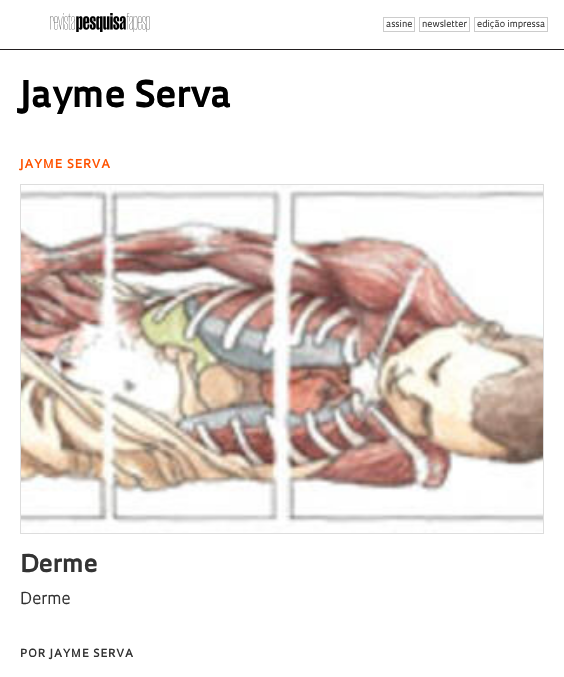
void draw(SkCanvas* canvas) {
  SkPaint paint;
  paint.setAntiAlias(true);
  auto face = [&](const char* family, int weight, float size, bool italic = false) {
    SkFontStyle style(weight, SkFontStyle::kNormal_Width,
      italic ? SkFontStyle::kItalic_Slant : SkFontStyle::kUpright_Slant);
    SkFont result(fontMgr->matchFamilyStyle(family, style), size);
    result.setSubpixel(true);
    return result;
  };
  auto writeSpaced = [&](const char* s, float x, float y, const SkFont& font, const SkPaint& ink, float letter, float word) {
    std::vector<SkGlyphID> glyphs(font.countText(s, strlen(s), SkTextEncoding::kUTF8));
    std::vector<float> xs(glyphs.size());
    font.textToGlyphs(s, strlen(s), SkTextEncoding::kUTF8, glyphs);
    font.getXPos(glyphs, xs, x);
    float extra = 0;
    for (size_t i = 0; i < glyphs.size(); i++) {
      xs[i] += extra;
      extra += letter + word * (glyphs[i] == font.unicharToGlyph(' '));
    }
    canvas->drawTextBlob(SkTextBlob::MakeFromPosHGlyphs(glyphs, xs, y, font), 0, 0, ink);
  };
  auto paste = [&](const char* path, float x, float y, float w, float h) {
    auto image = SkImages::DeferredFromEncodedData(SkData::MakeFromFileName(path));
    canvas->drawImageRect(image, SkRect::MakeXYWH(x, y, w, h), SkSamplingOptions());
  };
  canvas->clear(0xffffffff);
  paint.setColor(0xff231f20);
  canvas->drawRect(SkRect::MakeXYWH(0, 49, 564, 1), paint);
  paste("img/1.png", 50, 13, 100, 19);
  paint.setStroke(true);
  paint.setStrokeWidth(1);
  paint.setColor(0xffcccccc);
  canvas->drawRect(SkRect::MakeXYWH(383.5f, 17.5f, 31, 14), paint);
  canvas->drawRect(SkRect::MakeXYWH(419.5f, 17.5f, 50, 14), paint);
  canvas->drawRect(SkRect::MakeXYWH(474.5f, 17.5f, 73, 14), paint);
  paint.setColor(0xffdddddd);
  canvas->drawRect(SkRect::MakeXYWH(20.5f, 184.5f, 523, 349), paint);
  paste("img/2.png", 21, 185, 522, 348);
  auto f0 = face("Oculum", 400, 9);
  paint.setStroke(false);
  paint.setColor(0xff333333);
  {
    const struct { const char* s; float x, y; } items[] = {
      {"assine", 386, 27},
      {"newsletter", 422, 27},
      {"edição impressa", 477, 27},
    };
    for (auto [s, x, y] : items) {
      canvas->drawString(s, x, y, f0, paint);
    }
  }
  auto f1 = face("Oculum", 700, 36);
  paint.setColor(0xff000000);
  canvas->drawString("Jayme Serva", 20, 107, f1, paint);
  auto f2 = face("Oculum", 600, 12);
  paint.setColor(0xffff5200);
  writeSpaced("JAYME SERVA", 20, 168, f2, paint, 1, 0);
  auto f3 = face("Oculum", 700, 24);
  paint.setColor(0xff333333);
  canvas->drawString("Derme", 20, 572, f3, paint);
  auto f4 = face("Oculum", 400, 16);
  canvas->drawString("Derme", 20, 604, f4, paint);
  auto f5 = face("Oculum", 600, 11);
  writeSpaced("POR JAYME SERVA", 20, 657, f5, paint, 1, 0);
}
